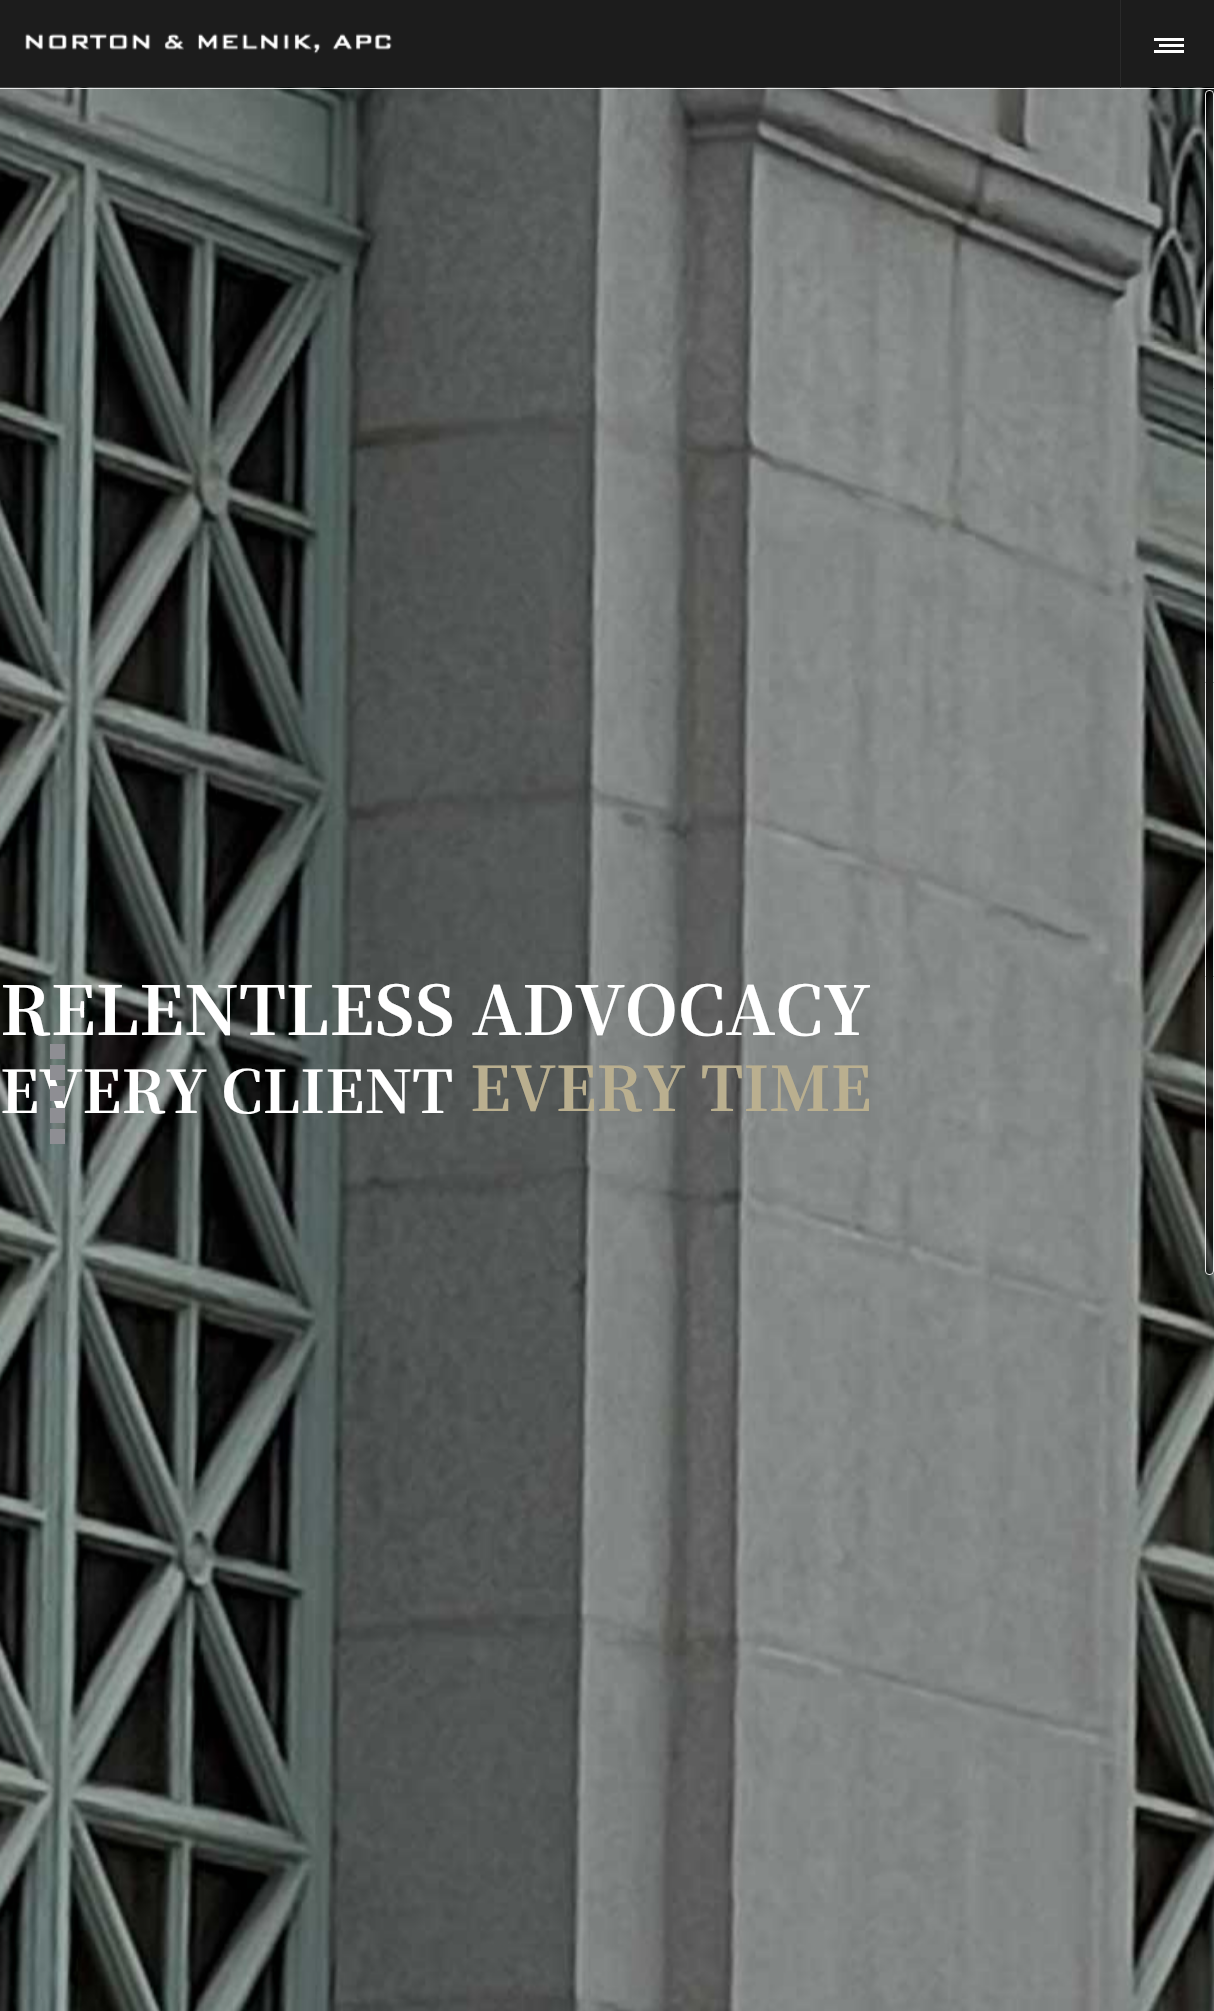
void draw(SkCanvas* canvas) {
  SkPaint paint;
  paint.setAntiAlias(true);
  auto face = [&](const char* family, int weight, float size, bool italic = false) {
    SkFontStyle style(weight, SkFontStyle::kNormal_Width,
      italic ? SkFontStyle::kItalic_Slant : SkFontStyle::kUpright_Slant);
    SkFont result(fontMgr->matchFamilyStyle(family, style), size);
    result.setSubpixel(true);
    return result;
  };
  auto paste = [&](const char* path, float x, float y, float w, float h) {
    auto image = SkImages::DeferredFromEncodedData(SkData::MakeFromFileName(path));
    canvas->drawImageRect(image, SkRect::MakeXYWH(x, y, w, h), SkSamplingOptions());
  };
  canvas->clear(0xff333333);
  paste("img/2.png", 0, 87, 1214, 1924);
  paint.setColor(0xffe7e7e7);
  canvas->drawRect(SkRect::MakeXYWH(0, 88, 1214, 1), paint);
  paint.setColor(0x73000000);
  canvas->drawRect(SkRect::MakeXYWH(0, 0, 1214, 88), paint);
  paste("img/1.png", 25, 33, 367, 21);
  {
    const struct { float x, y, w, h; SkColor color; } items[] = {
      {1120, 0, 1, 88, 0xff2a2a2a},
      {1154, 38, 30, 3, 0xffffffff},
      {1159, 44, 25, 3, 0xffffffff},
      {1154, 50, 30, 3, 0xffffffff},
      {50, 1044, 15, 15, 0xff8e8e93},
      {50, 1129, 15, 15, 0xff8e8e93},
    };
    for (auto [x, y, w, h, color] : items) {
      paint.setColor(color);
      canvas->drawRect(SkRect::MakeXYWH(x, y, w, h), paint);
    }
  }
  paint.setColor(0x80000000);
  canvas->drawRoundRect(SkRect::MakeXYWH(1205, 90, 9, 1185), 4, 4, paint);
  paint.setStroke(true);
  paint.setStrokeWidth(1);
  paint.setColor(0xe6ffffff);
  canvas->drawRoundRect(SkRect::MakeXYWH(1205.5f, 90.5f, 8, 1184), 3.5f, 3.5f, paint);
  auto f0 = face("Noto Serif TC", 200, 67.5f);
  paint.setStroke(false);
  paint.setColor(0xffffffff);
  canvas->drawString("RELENTLESS ADVOCACY", 0, 1035, f0, paint);
  auto f1 = face("Noto Serif TC", 200, 58.75f);
  canvas->drawString("EVERY CLIENT", 0, 1113, f1, paint);
  auto f2 = face("Noto Serif TC", 200, 61.25f);
  paint.setColor(0xffbaaf8f);
  canvas->drawString("EVERY TIME", 470, 1111, f2, paint);
  {
    const struct { float x, y, w, h; SkColor color; } items[] = {
      {50, 1065, 15, 15, 0xff8e8e93},
      {50, 1086, 15, 15, 0xff8e8e93},
      {50, 1108, 15, 15, 0xff8e8e93},
    };
    for (auto [x, y, w, h, color] : items) {
      paint.setColor(color);
      canvas->drawRect(SkRect::MakeXYWH(x, y, w, h), paint);
    }
  }
}
